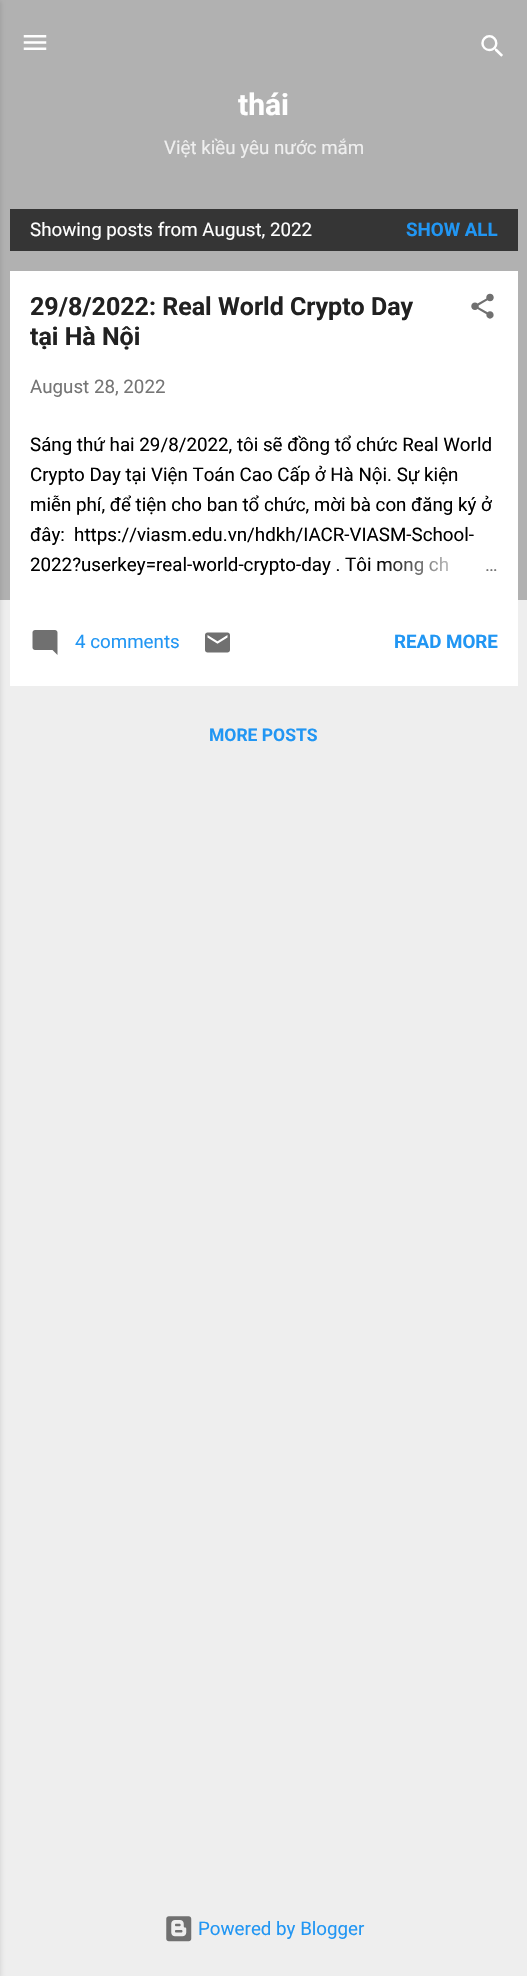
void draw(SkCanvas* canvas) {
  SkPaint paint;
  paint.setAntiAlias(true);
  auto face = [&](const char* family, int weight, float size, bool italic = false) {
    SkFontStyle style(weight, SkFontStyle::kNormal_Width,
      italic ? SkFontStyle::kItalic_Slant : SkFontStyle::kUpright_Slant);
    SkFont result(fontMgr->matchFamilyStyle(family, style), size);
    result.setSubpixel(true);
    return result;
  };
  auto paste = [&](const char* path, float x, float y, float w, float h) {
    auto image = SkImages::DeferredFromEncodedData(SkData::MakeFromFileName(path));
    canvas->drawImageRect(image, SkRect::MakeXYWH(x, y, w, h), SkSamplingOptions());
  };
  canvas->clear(0xffeeeeee);
  paint.setColor(0xffb1b1b1);
  canvas->drawRect(SkRect::MakeXYWH(0, 0, 527, 600), paint);
  paint.setColor(0x1a000000);
  paint.setMaskFilter(SkMaskFilter::MakeBlur(kNormal_SkBlurStyle, 2));
  canvas->drawRect(SkRect::MakeXYWH(-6, 1, 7, 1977), paint);
  paint.setMaskFilter(nullptr);
  paste("img/1.png", 23, 35, 24, 15);
  paste("img/2.png", 481, 35, 22, 22);
  paint.setColor(0xff353535);
  canvas->drawRect(SkRect::MakeXYWH(10, 209, 508, 42), paint);
  paint.setColor(0xffffffff);
  canvas->drawRect(SkRect::MakeXYWH(10, 271, 508, 415), paint);
  paste("img/3.png", 471, 293, 23, 26);
  paste("img/4.png", 32, 630, 26, 25);
  paste("img/5.png", 205, 632, 25, 21);
  paste("img/6.png", 166, 1916, 26, 26);
  auto f0 = face("Roboto", 700, 30);
  canvas->drawString("thái", 238, 115, f0, paint);
  auto f1 = face("Roboto", 400, 18.75f);
  paint.setColor(0xffefefef);
  canvas->drawString("Việt kiều yêu nước mắm", 164, 154, f1, paint);
  paint.setColor(0xffffffff);
  canvas->drawString("Showing posts from August, 2022", 30, 236, f1, paint);
  auto f2 = face("Roboto", 700, 18.75f);
  paint.setColor(0xff2196f3);
  canvas->drawString("SHOW ALL", 406, 236, f2, paint);
  auto f3 = face("Roboto", 700, 25);
  paint.setColor(0xff212121);
  canvas->drawString("29/8/2022: Real World Crypto Day", 30, 315, f3, paint);
  canvas->drawString("tại Hà Nội", 30, 345, f3, paint);
  paint.setColor(0xff757575);
  canvas->drawString("August 28, 2022", 30, 393, f1, paint);
  paint.setColor(0xff000000);
  {
    const struct { const char* s; float x, y; } items[] = {
      {"Sáng thứ hai 29/8/2022, tôi sẽ đồng tổ chức Real World", 30, 451},
      {"Crypto Day tại Viện Toán Cao Cấp ở Hà Nội. Sự kiện", 30, 481},
      {"miễn phí, để tiện cho ban tổ chức, mời bà con đăng ký ở", 30, 511},
      {"đây:  https://viasm.edu.vn/hdkh/IACR-VIASM-School-", 30, 541},
      {"2022?userkey=real-world-crypto-day . Tôi mong ch", 30, 571},
    };
    for (auto [s, x, y] : items) {
      canvas->drawString(s, x, y, f1, paint);
    }
  }
  {
    const SkColor colors[] = {0xffffffff, 0xffffffff, 0x00ffffff};
    const float stops[] = {0, 0.2f, 1};
    const SkPoint ends[] = {{498, 565}, {378, 565}};
    paint.setShader(SkGradientShader::MakeLinear(ends, colors, stops, 3, SkTileMode::kClamp));
    paint.setAlpha(255);
  }
  canvas->drawRect(SkRect::MakeXYWH(380, 556, 68, 19), paint);
  paint.setShader(nullptr);
  paint.setColor(0xff757575);
  canvas->drawString("…", 485, 571, f1, paint);
  paint.setColor(0xff2196f3);
  canvas->drawString("4 comments", 75, 648, f1, paint);
  canvas->drawString("READ MORE", 394, 648, f2, paint);
  auto f4 = face("Roboto", 700, 17.5f);
  canvas->drawString("MORE POSTS", 209, 741, f4, paint);
  canvas->drawString("Powered by Blogger", 198, 1935, f1, paint);
}
